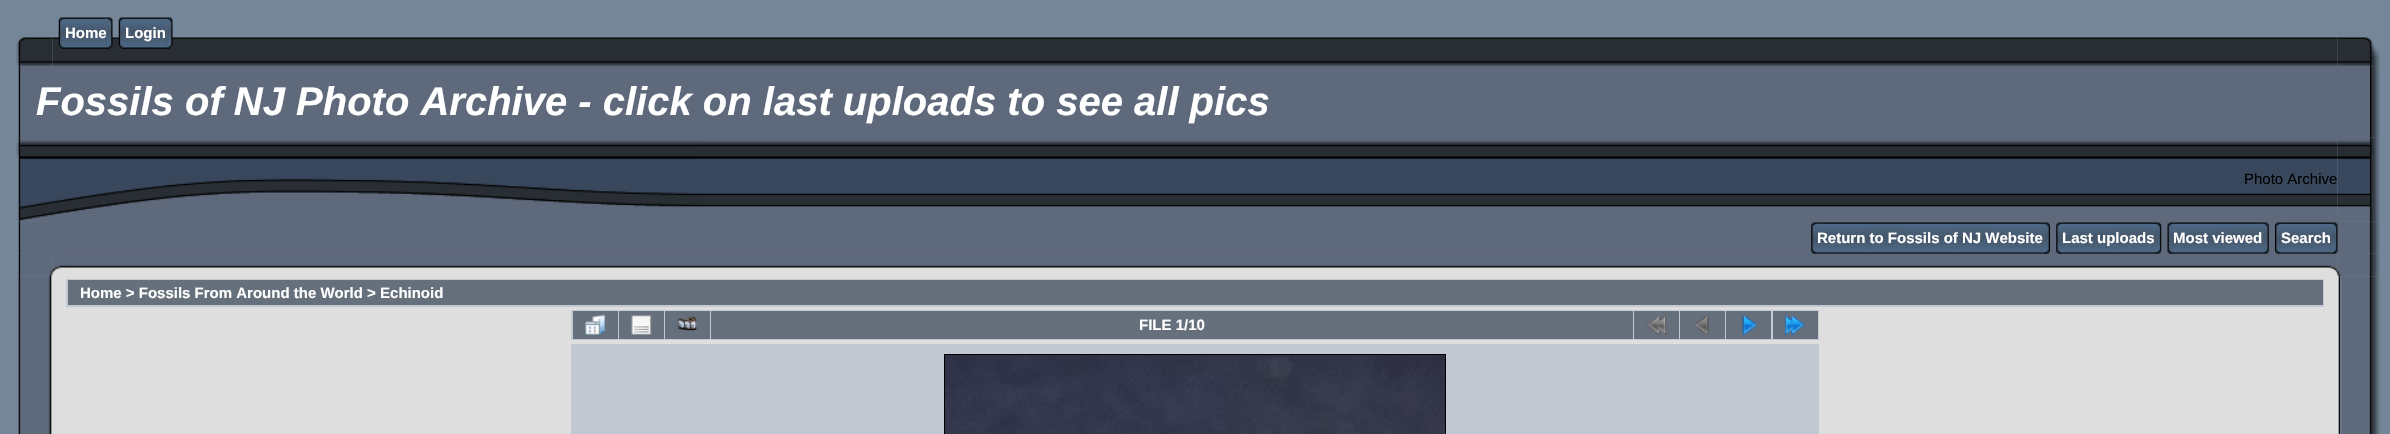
void draw(SkCanvas* canvas) {
  SkPaint paint;
  paint.setAntiAlias(true);
  auto face = [&](const char* family, int weight, float size, bool italic = false) {
    SkFontStyle style(weight, SkFontStyle::kNormal_Width,
      italic ? SkFontStyle::kItalic_Slant : SkFontStyle::kUpright_Slant);
    SkFont result(fontMgr->matchFamilyStyle(family, style), size);
    result.setSubpixel(true);
    return result;
  };
  auto paste = [&](const char* path, float x, float y, float w, float h) {
    auto image = SkImages::DeferredFromEncodedData(SkData::MakeFromFileName(path));
    canvas->drawImageRect(image, SkRect::MakeXYWH(x, y, w, h), SkSamplingOptions());
  };
  canvas->clear(0xff758698);
  paste("img/8.png", 16, 37, 37, 30);
  paste("img/1.png", 52, 37, 2286, 29);
  paste("img/2.png", 58, 17, 7, 32);
  paste("img/3.png", 65, 17, 42, 32);
  paste("img/5.png", 118, 17, 7, 32);
  paste("img/6.png", 125, 17, 42, 32);
  paste("img/7.png", 166, 17, 7, 32);
  paste("img/9.png", 2337, 37, 43, 30);
  paste("img/10.png", 18, 66, 4, 72);
  paint.setColor(0xff5e697b);
  canvas->drawRect(SkRect::MakeXYWH(22, 66, 2348, 72), paint);
  paste("img/11.png", 2370, 66, 10, 72);
  paste("img/12.png", 16, 137, 684, 85);
  paste("img/13.png", 700, 138, 1638, 83);
  paste("img/14.png", 2337, 137, 43, 85);
  paste("img/15.png", 18, 221, 34, 33);
  canvas->drawRect(SkRect::MakeXYWH(52, 221, 2286, 33), paint);
  paste("img/17.png", 1817, 222, 227, 32);
  paste("img/19.png", 2062, 222, 93, 32);
  paste("img/22.png", 2173, 222, 90, 32);
  paste("img/25.png", 2281, 222, 51, 32);
  paste("img/30.png", 70, 253, 2250, 23);
  paste("img/16.png", 1811, 222, 7, 32);
  paste("img/18.png", 2043, 222, 7, 32);
  paste("img/16.png", 2056, 222, 7, 32);
  paste("img/20.png", 2155, 222, 7, 32);
  paste("img/21.png", 2167, 222, 7, 32);
  paste("img/23.png", 2262, 222, 7, 32);
  paste("img/24.png", 2275, 222, 7, 32);
  paste("img/31.png", 2320, 253, 18, 23);
  paste("img/27.png", 2338, 221, 42, 33);
  paste("img/32.png", 2337, 253, 43, 24);
  paste("img/26.png", 2331, 222, 7, 32);
  paste("img/28.png", 18, 253, 35, 24);
  paste("img/29.png", 52, 254, 18, 22);
  paste("img/33.png", 18, 276, 34, 158);
  {
    const struct { float x, y, w, h; SkColor color; } items[] = {
      {52, 276, 2286, 158, 0xffdedede},
      {66, 279, 2258, 28, 0xffc2c9d3},
      {68, 280, 2255, 25, 0xff66707c},
      {571, 310, 1248, 30, 0xffc2c9d3},
      {573, 311, 45, 28, 0xff66707c},
    };
    for (auto [x, y, w, h, color] : items) {
      paint.setColor(color);
      canvas->drawRect(SkRect::MakeXYWH(x, y, w, h), paint);
    }
  }
  paste("img/34.png", 585, 315, 20, 20);
  canvas->drawRect(SkRect::MakeXYWH(619, 311, 45, 28), paint);
  paste("img/35.png", 631, 315, 21, 20);
  canvas->drawRect(SkRect::MakeXYWH(665, 311, 45, 28), paint);
  paste("img/36.png", 677, 316, 21, 15);
  canvas->drawRect(SkRect::MakeXYWH(711, 311, 922, 28), paint);
  canvas->drawRect(SkRect::MakeXYWH(1634, 311, 45, 28), paint);
  paste("img/37.png", 1646, 315, 21, 20);
  canvas->drawRect(SkRect::MakeXYWH(1680, 311, 45, 28), paint);
  paste("img/38.png", 1694, 315, 15, 20);
  canvas->drawRect(SkRect::MakeXYWH(1726, 311, 45, 28), paint);
  paste("img/39.png", 1742, 315, 16, 20);
  canvas->drawRect(SkRect::MakeXYWH(1773, 311, 45, 28), paint);
  paste("img/40.png", 1785, 315, 20, 20);
  paint.setColor(0xffc2c9d3);
  canvas->drawRect(SkRect::MakeXYWH(571, 344, 1248, 90), paint);
  paint.setStroke(true);
  paint.setStrokeWidth(1);
  paint.setColor(0xff000000);
  canvas->drawRect(SkRect::MakeXYWH(944.5f, 354.5f, 501, 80), paint);
  paste("img/41.png", 945, 355, 500, 79);
  paste("img/42.png", 2338, 276, 42, 158);
  auto f0 = face("Liberation Sans", 700, 15);
  paint.setStroke(false);
  paint.setColor(0xffffffff);
  canvas->drawString("Home", 65, 38, f0, paint);
  paste("img/4.png", 106, 17, 7, 32);
  canvas->drawString("Login", 125, 38, f0, paint);
  auto f1 = face("Liberation Sans", 700, 40, true);
  canvas->drawString("Fossils of NJ Photo Archive - click on last uploads to see all pics", 36, 115, f1, paint);
  auto f2 = face("Liberation Sans", 400, 15);
  paint.setColor(0xff000000);
  canvas->drawString("Photo Archive", 2244, 184, f2, paint);
  paint.setColor(0xffffffff);
  {
    const struct { const char* s; float x, y; } items[] = {
      {"Return to Fossils of NJ Website", 1817, 243},
      {"Last uploads", 2062, 243},
      {"Most viewed", 2173, 243},
      {"Search", 2281, 243},
      {"Home > Fossils From Around the World > Echinoid", 80, 298},
      {"FILE 1/10", 1139, 330},
    };
    for (auto [s, x, y] : items) {
      canvas->drawString(s, x, y, f0, paint);
    }
  }
}
